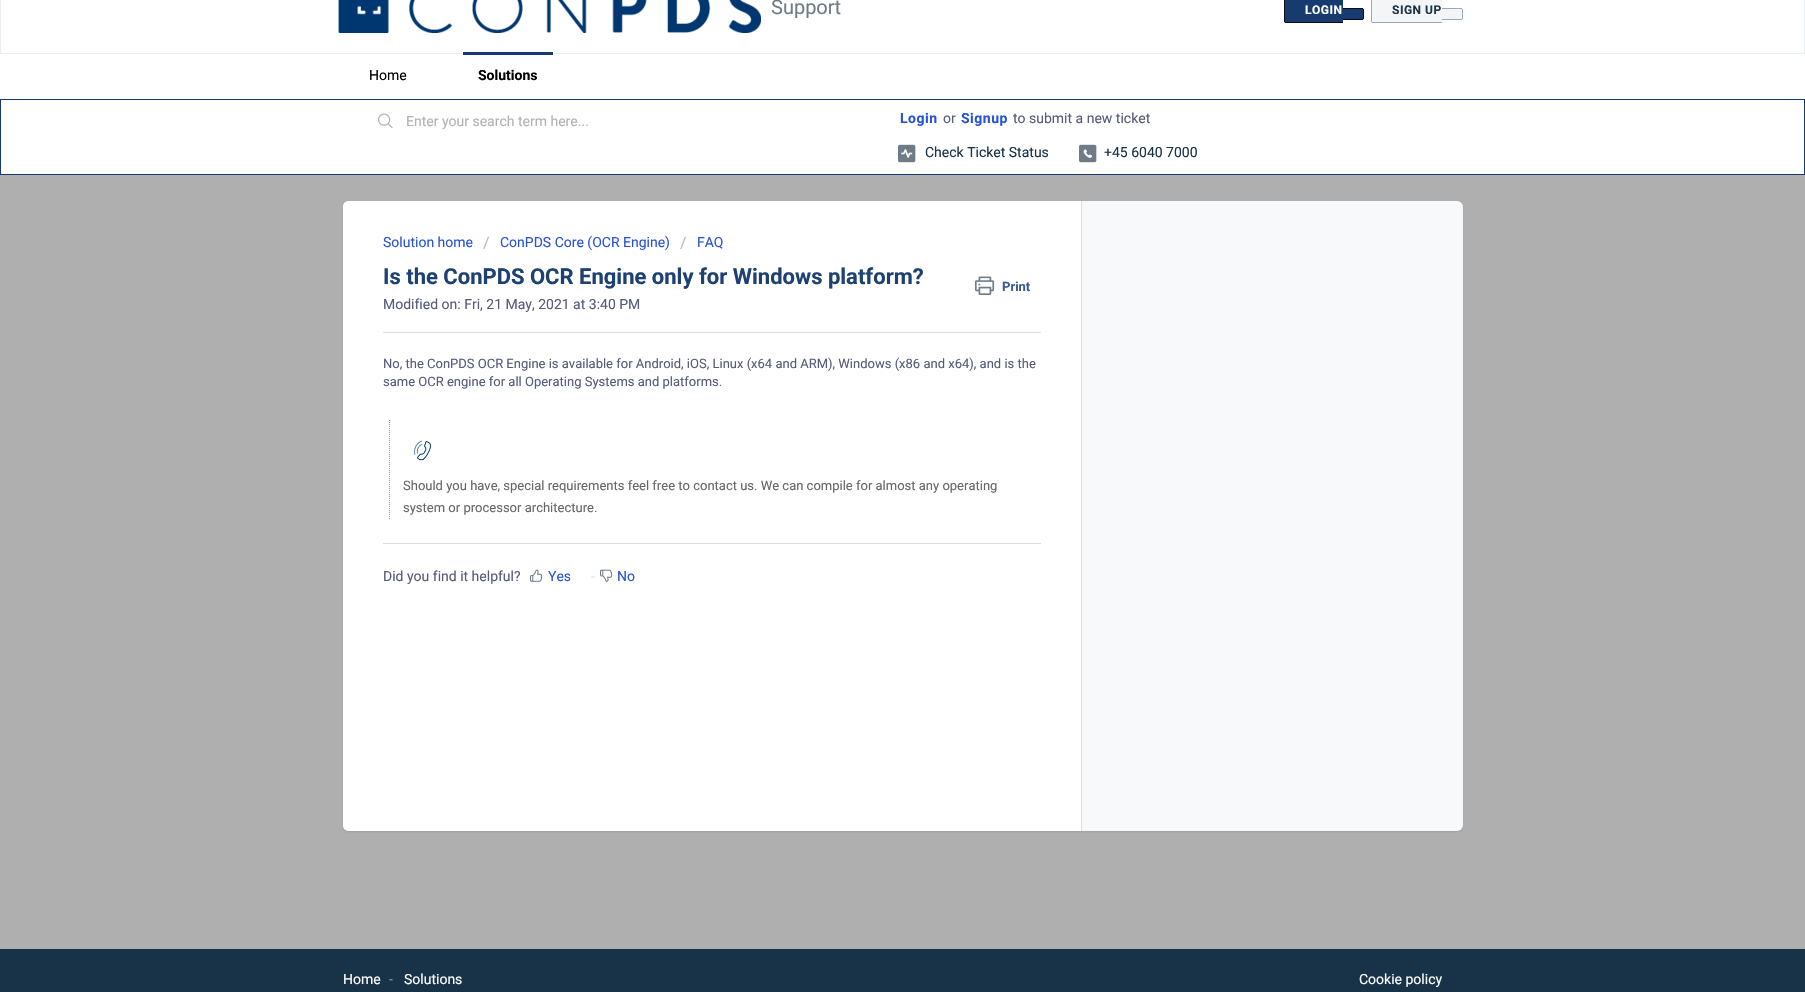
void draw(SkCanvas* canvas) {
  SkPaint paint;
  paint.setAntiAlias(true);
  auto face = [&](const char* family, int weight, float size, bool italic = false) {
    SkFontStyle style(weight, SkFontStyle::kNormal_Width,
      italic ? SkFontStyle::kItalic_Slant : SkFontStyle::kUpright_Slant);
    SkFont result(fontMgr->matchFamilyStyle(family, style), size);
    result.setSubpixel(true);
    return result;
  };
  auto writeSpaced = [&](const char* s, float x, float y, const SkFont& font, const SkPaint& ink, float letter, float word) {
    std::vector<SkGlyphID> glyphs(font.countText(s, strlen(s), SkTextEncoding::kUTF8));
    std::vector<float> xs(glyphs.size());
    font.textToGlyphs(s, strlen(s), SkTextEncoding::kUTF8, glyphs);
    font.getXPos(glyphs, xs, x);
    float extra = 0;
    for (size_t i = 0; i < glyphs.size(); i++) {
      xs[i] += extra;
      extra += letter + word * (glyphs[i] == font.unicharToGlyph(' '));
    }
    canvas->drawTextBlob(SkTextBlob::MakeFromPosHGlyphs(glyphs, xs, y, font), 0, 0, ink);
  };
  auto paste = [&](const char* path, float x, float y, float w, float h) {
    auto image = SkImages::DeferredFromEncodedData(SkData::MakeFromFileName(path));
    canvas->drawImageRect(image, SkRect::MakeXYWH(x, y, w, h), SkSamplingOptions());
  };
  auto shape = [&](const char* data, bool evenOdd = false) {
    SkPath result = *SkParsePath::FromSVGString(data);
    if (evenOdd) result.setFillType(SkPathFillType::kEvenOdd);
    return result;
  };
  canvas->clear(0xffafafaf);
  paint.setColor(0xffffffff);
  canvas->drawRect(SkRect::MakeXYWH(0.5f, -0.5f, 1804, 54), paint);
  paint.setStroke(true);
  paint.setStrokeWidth(1);
  paint.setColor(0xffebeef0);
  canvas->drawRect(SkRect::MakeXYWH(0.5f, -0.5f, 1804, 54), paint);
  paste("img/1.png", 338, 0, 423, 33);
  paint.setStroke(false);
  paint.setColor(0xff173b6e);
  canvas->drawPath(shape("M1286-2H1343V23H1286C1285 23 1284 22 1284 21V0C1284-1 1285-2 1286-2Z"), paint);
  paint.setColor(0xff050e1a);
  canvas->drawRect(SkRect::MakeXYWH(1285, 22, 58, 1), paint);
  canvas->drawRect(SkRect::MakeXYWH(1284, 0, 1, 22), paint);
  paint.setColor(0xff173b6e);
  canvas->drawPath(shape("M1343 8H1362C1363 8 1364 9 1364 10V18C1364 19 1363 20 1362 20H1343Z"), paint);
  {
    const struct { float x, y, w, h; SkColor color; } items[] = {
      {1343, 8, 20, 1, 0xff050e1a},
      {1363, 9, 1, 10, 0xff050e1a},
      {1343, 19, 20, 1, 0xff050e1a},
    };
    for (auto [x, y, w, h, color] : items) {
      paint.setColor(color);
      canvas->drawRect(SkRect::MakeXYWH(x, y, w, h), paint);
    }
  }
  paint.setColor(0xfff3f5f7);
  canvas->drawPath(shape("M1373-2H1442V23H1373C1372 23 1371 22 1371 21V0C1371-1 1372-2 1373-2Z"), paint);
  paint.setColor(0xff97a9ba);
  canvas->drawRect(SkRect::MakeXYWH(1372, 22, 70, 1), paint);
  canvas->drawRect(SkRect::MakeXYWH(1371, 0, 1, 22), paint);
  paint.setColor(0xfff3f5f7);
  canvas->drawPath(shape("M1442 8H1461C1462 8 1463 9 1463 10V18C1463 19 1462 20 1461 20H1442Z"), paint);
  {
    const struct { float x, y, w, h; SkColor color; } items[] = {
      {1442, 8, 20, 1, 0xff97a9ba},
      {1462, 9, 1, 10, 0xff97a9ba},
      {1442, 19, 20, 1, 0xff97a9ba},
      {0, 54, 1805, 45, 0xffffffff},
      {463, 52, 90, 3, 0xff173b6e},
    };
    for (auto [x, y, w, h, color] : items) {
      paint.setColor(color);
      canvas->drawRect(SkRect::MakeXYWH(x, y, w, h), paint);
    }
  }
  paint.setColor(0xffffffff);
  canvas->drawRect(SkRect::MakeXYWH(0.5f, 99.5f, 1804, 75), paint);
  paint.setStroke(true);
  paint.setColor(0xff173b6e);
  canvas->drawRect(SkRect::MakeXYWH(0.5f, 99.5f, 1804, 75), paint);
  paste("img/2.png", 378, 113, 15, 15);
  paste("img/3.png", 898, 144, 18, 19);
  paste("img/4.png", 1079, 144, 18, 19);
  paint.setStroke(false);
  paint.setColor(0x263f3f44);
  paint.setMaskFilter(SkMaskFilter::MakeBlur(kNormal_SkBlurStyle, 1));
  canvas->drawRoundRect(SkRect::MakeXYWH(343, 202, 1120, 630), 6, 6, paint);
  paint.setMaskFilter(nullptr);
  paint.setColor(0xfff8f9fa);
  canvas->drawRoundRect(SkRect::MakeXYWH(343, 201, 1120, 630), 6, 6, paint);
  canvas->drawPath(shape("M1082 201H1456C1459.5 201 1462 203.5 1462 207V215C1462 218.5 1459.5 221 1456 221H1082Z"), paint);
  paint.setColor(0xffffffff);
  canvas->drawPath(shape("M349 201H1082V831H349C345.5 831 343 828.5 343 825V207C343 203.5 345.5 201 349 201Z"), paint);
  paint.setColor(0xffdadfe3);
  canvas->drawRect(SkRect::MakeXYWH(1081, 201, 1, 630), paint);
  paste("img/5.png", 975, 276, 20, 19);
  paint.setColor(0xffdcdcdc);
  canvas->drawRect(SkRect::MakeXYWH(383, 332, 658, 1), paint);
  paint.setStroke(true);
  paint.setColor(0xff999999);
  paint.setPathEffect(SkDashPathEffect::Make({{1, 1}}, 0));
  canvas->drawPath(shape("M389.5 420V520"), paint);
  paint.setPathEffect(nullptr);
  paste("img/6.png", 414, 440, 17, 21);
  paint.setStroke(false);
  paint.setColor(0xffdcdcdc);
  canvas->drawRect(SkRect::MakeXYWH(383, 543, 658, 1), paint);
  paste("img/7.png", 530, 569, 13, 13);
  paste("img/8.png", 600, 569, 13, 13);
  paint.setColor(0xff183247);
  canvas->drawRect(SkRect::MakeXYWH(0, 949, 1805, 43), paint);
  auto f0 = face("Roboto", 400, 20);
  paint.setColor(0xff6f7c87);
  canvas->drawString("Support", 771, 14, f0, paint);
  auto f1 = face("Roboto", 700, 12);
  paint.setColor(0xffffffff);
  writeSpaced("LOGIN", 1305, 14, f1, paint, 0.5f, 0);
  paint.setColor(0xff183247);
  writeSpaced("SIGN UP", 1392, 14, f1, paint, 0.5f, 0);
  auto f2 = face("Roboto", 400, 14);
  paint.setColor(0xff000000);
  canvas->drawString("Home", 369, 80, f2, paint);
  auto f3 = face("Roboto", 700, 14);
  canvas->drawString("Solutions", 478, 80, f3, paint);
  paint.setColor(0xffb2b2b2);
  canvas->drawString("Enter your search term here...", 406, 126, f2, paint);
  paint.setColor(0xff2753d7);
  writeSpaced("Login", 900, 123, f3, paint, 0.5f, 0);
  paint.setColor(0xff555b7b);
  canvas->drawString("or", 943, 123, f2, paint);
  paint.setColor(0xff2753d7);
  writeSpaced("Signup", 961, 123, f3, paint, 0.5f, 0);
  paint.setColor(0xff555b7b);
  canvas->drawString("to submit a new ticket", 1013, 123, f2, paint);
  paint.setColor(0xff183247);
  canvas->drawString("Check Ticket Status", 925, 157, f2, paint);
  canvas->drawString("+45 6040 7000", 1104, 157, f2, paint);
  paint.setColor(0xff2753d7);
  canvas->drawString("Solution home", 383, 247, f2, paint);
  auto f4 = face("Roboto", 400, 16);
  paint.setColor(0xffbbbbbb);
  canvas->drawString("/", 483, 248, f4, paint);
  paint.setColor(0xff2753d7);
  canvas->drawString("ConPDS Core (OCR Engine)", 500, 247, f2, paint);
  paint.setColor(0xffbbbbbb);
  canvas->drawString("/", 680, 248, f4, paint);
  paint.setColor(0xff2753d7);
  canvas->drawString("FAQ", 697, 247, f2, paint);
  auto f5 = face("Roboto", 700, 22);
  paint.setColor(0xff1e4173);
  canvas->drawString("Is the ConPDS OCR Engine only for Windows platform?", 383, 284, f5, paint);
  auto f6 = face("Roboto", 700, 13);
  paint.setColor(0xff3b5998);
  canvas->drawString("Print", 1002, 291, f6, paint);
  paint.setColor(0xff555b7b);
  canvas->drawString("Modified on: Fri, 21 May, 2021 at 3:40 PM", 383, 309, f2, paint);
  auto f7 = face("Roboto", 400, 13);
  canvas->drawString("No, the ConPDS OCR Engine is available for Android, iOS, Linux (x64 and ARM), Windows (x86 and x64), and is the", 383, 368, f7, paint);
  canvas->drawString("same OCR engine for all Operating Systems and platforms.", 383, 386, f7, paint);
  paint.setColor(0xff666666);
  canvas->drawString("Should you have, special requirements feel free to contact us. We can compile for almost any operating", 403, 490, f7, paint);
  canvas->drawString("system or processor architecture.", 403, 512, f7, paint);
  paint.setColor(0xff555b7b);
  canvas->drawString("Did you find it helpful?", 383, 581, f2, paint);
  paint.setColor(0xff2753d7);
  canvas->drawString("Yes", 548, 581, f2, paint);
  paint.setColor(0xffe5e5e5);
  canvas->drawString("-", 591, 581, f2, paint);
  paint.setColor(0xff2753d7);
  canvas->drawString("No", 617, 581, f2, paint);
  paint.setColor(0xffffffff);
  canvas->drawString("Home", 343, 984, f2, paint);
  paint.setColor(0xff8c99a3);
  canvas->drawString("-", 389, 984, f2, paint);
  paint.setColor(0xffffffff);
  canvas->drawString("Solutions", 404, 984, f2, paint);
  canvas->drawString("Cookie policy", 1359, 984, f2, paint);
}
